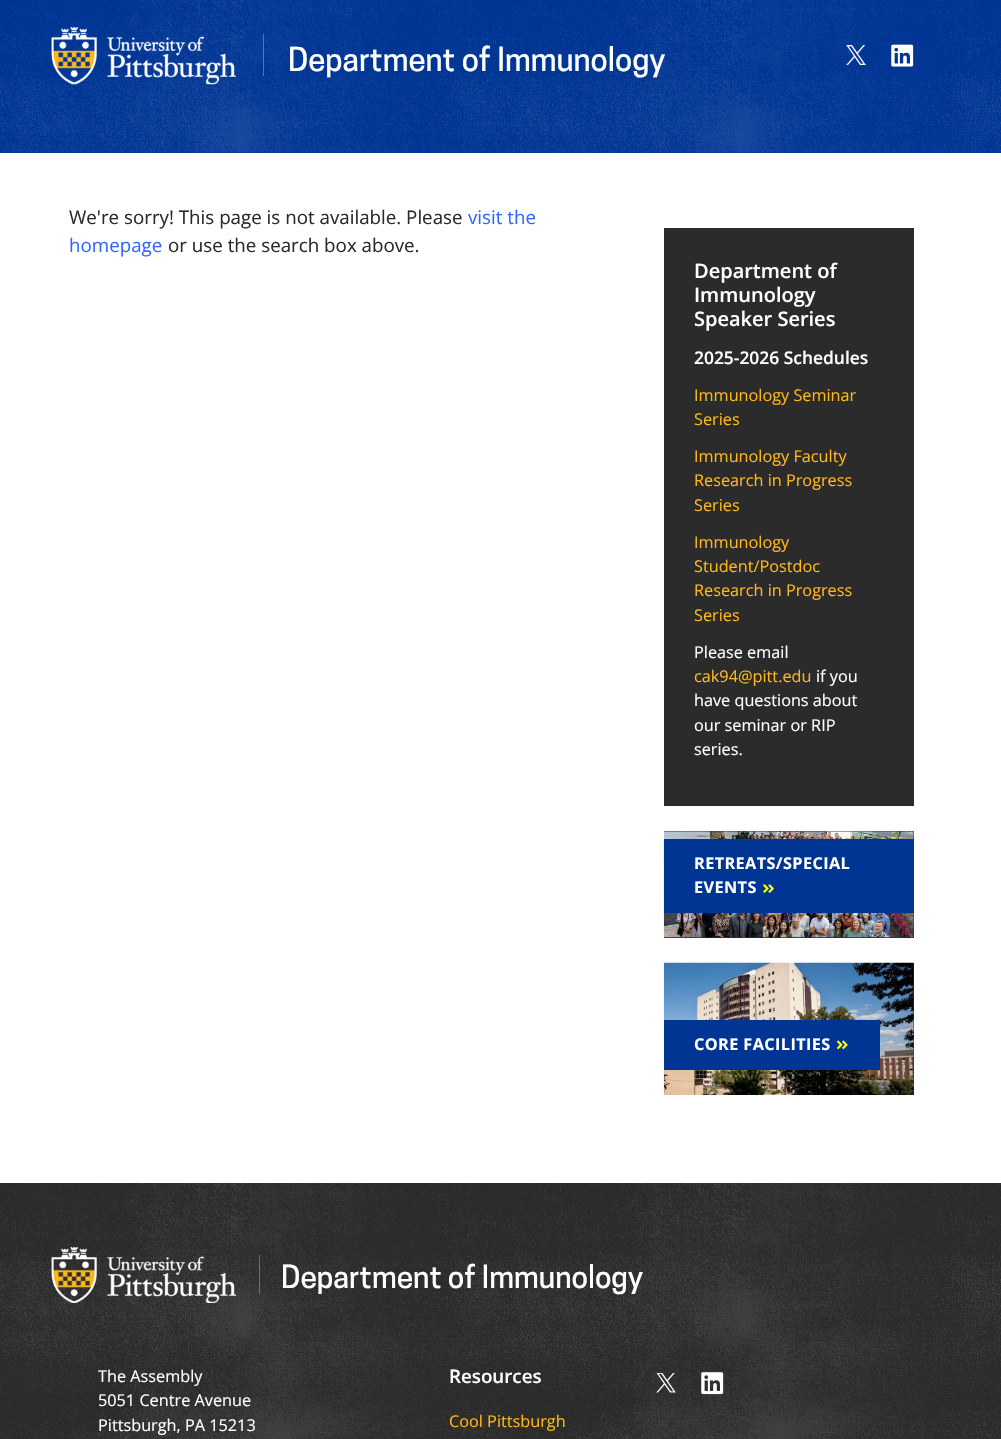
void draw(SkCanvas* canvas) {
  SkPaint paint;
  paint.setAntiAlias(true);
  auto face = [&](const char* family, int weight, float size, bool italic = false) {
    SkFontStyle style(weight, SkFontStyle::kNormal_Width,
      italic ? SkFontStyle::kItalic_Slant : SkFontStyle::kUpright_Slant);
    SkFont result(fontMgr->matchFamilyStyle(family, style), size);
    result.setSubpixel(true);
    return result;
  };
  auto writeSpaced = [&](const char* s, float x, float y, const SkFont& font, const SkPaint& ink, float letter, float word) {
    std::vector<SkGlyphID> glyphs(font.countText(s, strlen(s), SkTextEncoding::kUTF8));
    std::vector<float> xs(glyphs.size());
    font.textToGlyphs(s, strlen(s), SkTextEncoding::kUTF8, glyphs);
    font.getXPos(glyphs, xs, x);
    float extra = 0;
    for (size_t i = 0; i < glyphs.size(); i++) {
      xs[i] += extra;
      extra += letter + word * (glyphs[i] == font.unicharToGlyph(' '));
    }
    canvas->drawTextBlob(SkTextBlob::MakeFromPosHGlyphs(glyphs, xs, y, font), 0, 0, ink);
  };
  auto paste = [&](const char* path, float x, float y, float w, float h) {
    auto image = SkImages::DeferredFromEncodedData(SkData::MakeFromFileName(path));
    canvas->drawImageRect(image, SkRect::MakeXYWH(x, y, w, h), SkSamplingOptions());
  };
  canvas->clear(0xffffffff);
  paint.setColor(0xff003594);
  canvas->drawRect(SkRect::MakeXYWH(0, 0, 1001, 153), paint);
  paste("img/1.png", 0, 0, 1001, 153);
  paste("img/2.png", 51, 27, 185, 58);
  paint.setColor(0x4dffffff);
  canvas->drawRect(SkRect::MakeXYWH(263, 34, 1, 42), paint);
  paste("img/3.png", 846, 45, 20, 20);
  paste("img/4.png", 891, 44, 23, 23);
  paint.setColor(0xff2b2b2b);
  canvas->drawRect(SkRect::MakeXYWH(664, 228, 250, 578), paint);
  canvas->drawRect(SkRect::MakeXYWH(664, 831, 250, 107), paint);
  paste("img/5.png", 663, 831, 251, 107);
  paint.setColor(0xff003594);
  canvas->drawRect(SkRect::MakeXYWH(664, 839, 250, 74), paint);
  paste("img/6.png", 763, 884, 11, 9);
  paint.setColor(0xff2b2b2b);
  canvas->drawRect(SkRect::MakeXYWH(913, 963, 1, 132), paint);
  paste("img/7.png", 663, 962, 251, 133);
  paint.setColor(0xff003594);
  canvas->drawRect(SkRect::MakeXYWH(664, 1020, 216, 50), paint);
  paste("img/8.png", 837, 1040, 11, 10);
  paint.setColor(0xff2b2b2b);
  canvas->drawRect(SkRect::MakeXYWH(0, 1183, 1001, 256), paint);
  paste("img/9.png", 0, 1183, 1001, 256);
  paste("img/10.png", 51, 1247, 185, 56);
  paint.setColor(0x4dffffff);
  canvas->drawRect(SkRect::MakeXYWH(259, 1255, 1, 39), paint);
  paste("img/11.png", 656, 1373, 20, 20);
  paste("img/12.png", 701, 1372, 23, 23);
  auto f0 = face("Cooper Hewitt", 500, 31.25f);
  paint.setColor(0xffffffff);
  canvas->drawString("Department of Immunology", 288, 71, f0, paint);
  auto f1 = face("Open Sans", 400, 18.75f);
  paint.setColor(0xff2b2b2b);
  canvas->drawString("We're sorry! This page is not available. Please", 69, 224, f1, paint);
  paint.setColor(0xff3366ff);
  canvas->drawString("visit the", 468, 224, f1, paint);
  canvas->drawString("homepage", 69, 252, f1, paint);
  paint.setColor(0xff2b2b2b);
  canvas->drawString("or use the search box above.", 168, 252, f1, paint);
  auto f2 = face("Open Sans", 600, 20);
  paint.setColor(0xffffffff);
  {
    const struct { const char* s; float x, y; } items[] = {
      {"Department of", 694, 278},
      {"Immunology", 694, 302},
      {"Speaker Series", 694, 326},
    };
    for (auto [s, x, y] : items) {
      canvas->drawString(s, x, y, f2, paint);
    }
  }
  auto f3 = face("Open Sans", 600, 17.4f);
  canvas->drawString("2025-2026 Schedules", 694, 364, f3, paint);
  auto f4 = face("Open Sans", 400, 16.25f);
  paint.setColor(0xffffb81c);
  {
    const struct { const char* s; float x, y; } items[] = {
      {"Immunology Seminar", 694, 401},
      {"Series", 694, 425},
      {"Immunology Faculty", 694, 462},
      {"Research in Progress", 694, 486},
      {"Series", 694, 511},
      {"Immunology", 694, 548},
      {"Student/Postdoc", 694, 572},
      {"Research in Progress", 694, 596},
      {"Series", 694, 621},
    };
    for (auto [s, x, y] : items) {
      canvas->drawString(s, x, y, f4, paint);
    }
  }
  paint.setColor(0xffffffff);
  canvas->drawString("Please email", 694, 658, f4, paint);
  paint.setColor(0xffffb81c);
  canvas->drawString("cak94@pitt.edu", 694, 682, f4, paint);
  paint.setColor(0xffffffff);
  {
    const struct { const char* s; float x, y; } items[] = {
      {"if you", 816, 682},
      {"have questions about", 694, 706},
      {"our seminar or RIP", 694, 731},
      {"series.", 694, 755},
    };
    for (auto [s, x, y] : items) {
      canvas->drawString(s, x, y, f4, paint);
    }
  }
  auto f5 = face("Open Sans", 700, 16.25f);
  {
    const struct { const char* s; float x, y; } items[] = {
      {"RETREATS/SPECIAL", 694, 869},
      {"EVENTS", 694, 893},
      {"CORE FACILITIES", 694, 1050},
    };
    for (auto [s, x, y] : items) {
      writeSpaced(s, x, y, f5, paint, 0.4f, 0);
    }
  }
  auto f6 = face("Cooper Hewitt", 500, 30);
  canvas->drawString("Department of Immunology", 281, 1288, f6, paint);
  {
    const struct { const char* s; float x, y; } items[] = {
      {"The Assembly", 98, 1382},
      {"5051 Centre Avenue", 98, 1406},
      {"Pittsburgh, PA 15213", 98, 1431},
    };
    for (auto [s, x, y] : items) {
      canvas->drawString(s, x, y, f4, paint);
    }
  }
  auto f7 = face("Open Sans", 600, 18.75f);
  canvas->drawString("Resources", 449, 1383, f7, paint);
  paint.setColor(0xffffb81c);
  canvas->drawString("Cool Pittsburgh", 449, 1427, f4, paint);
}
